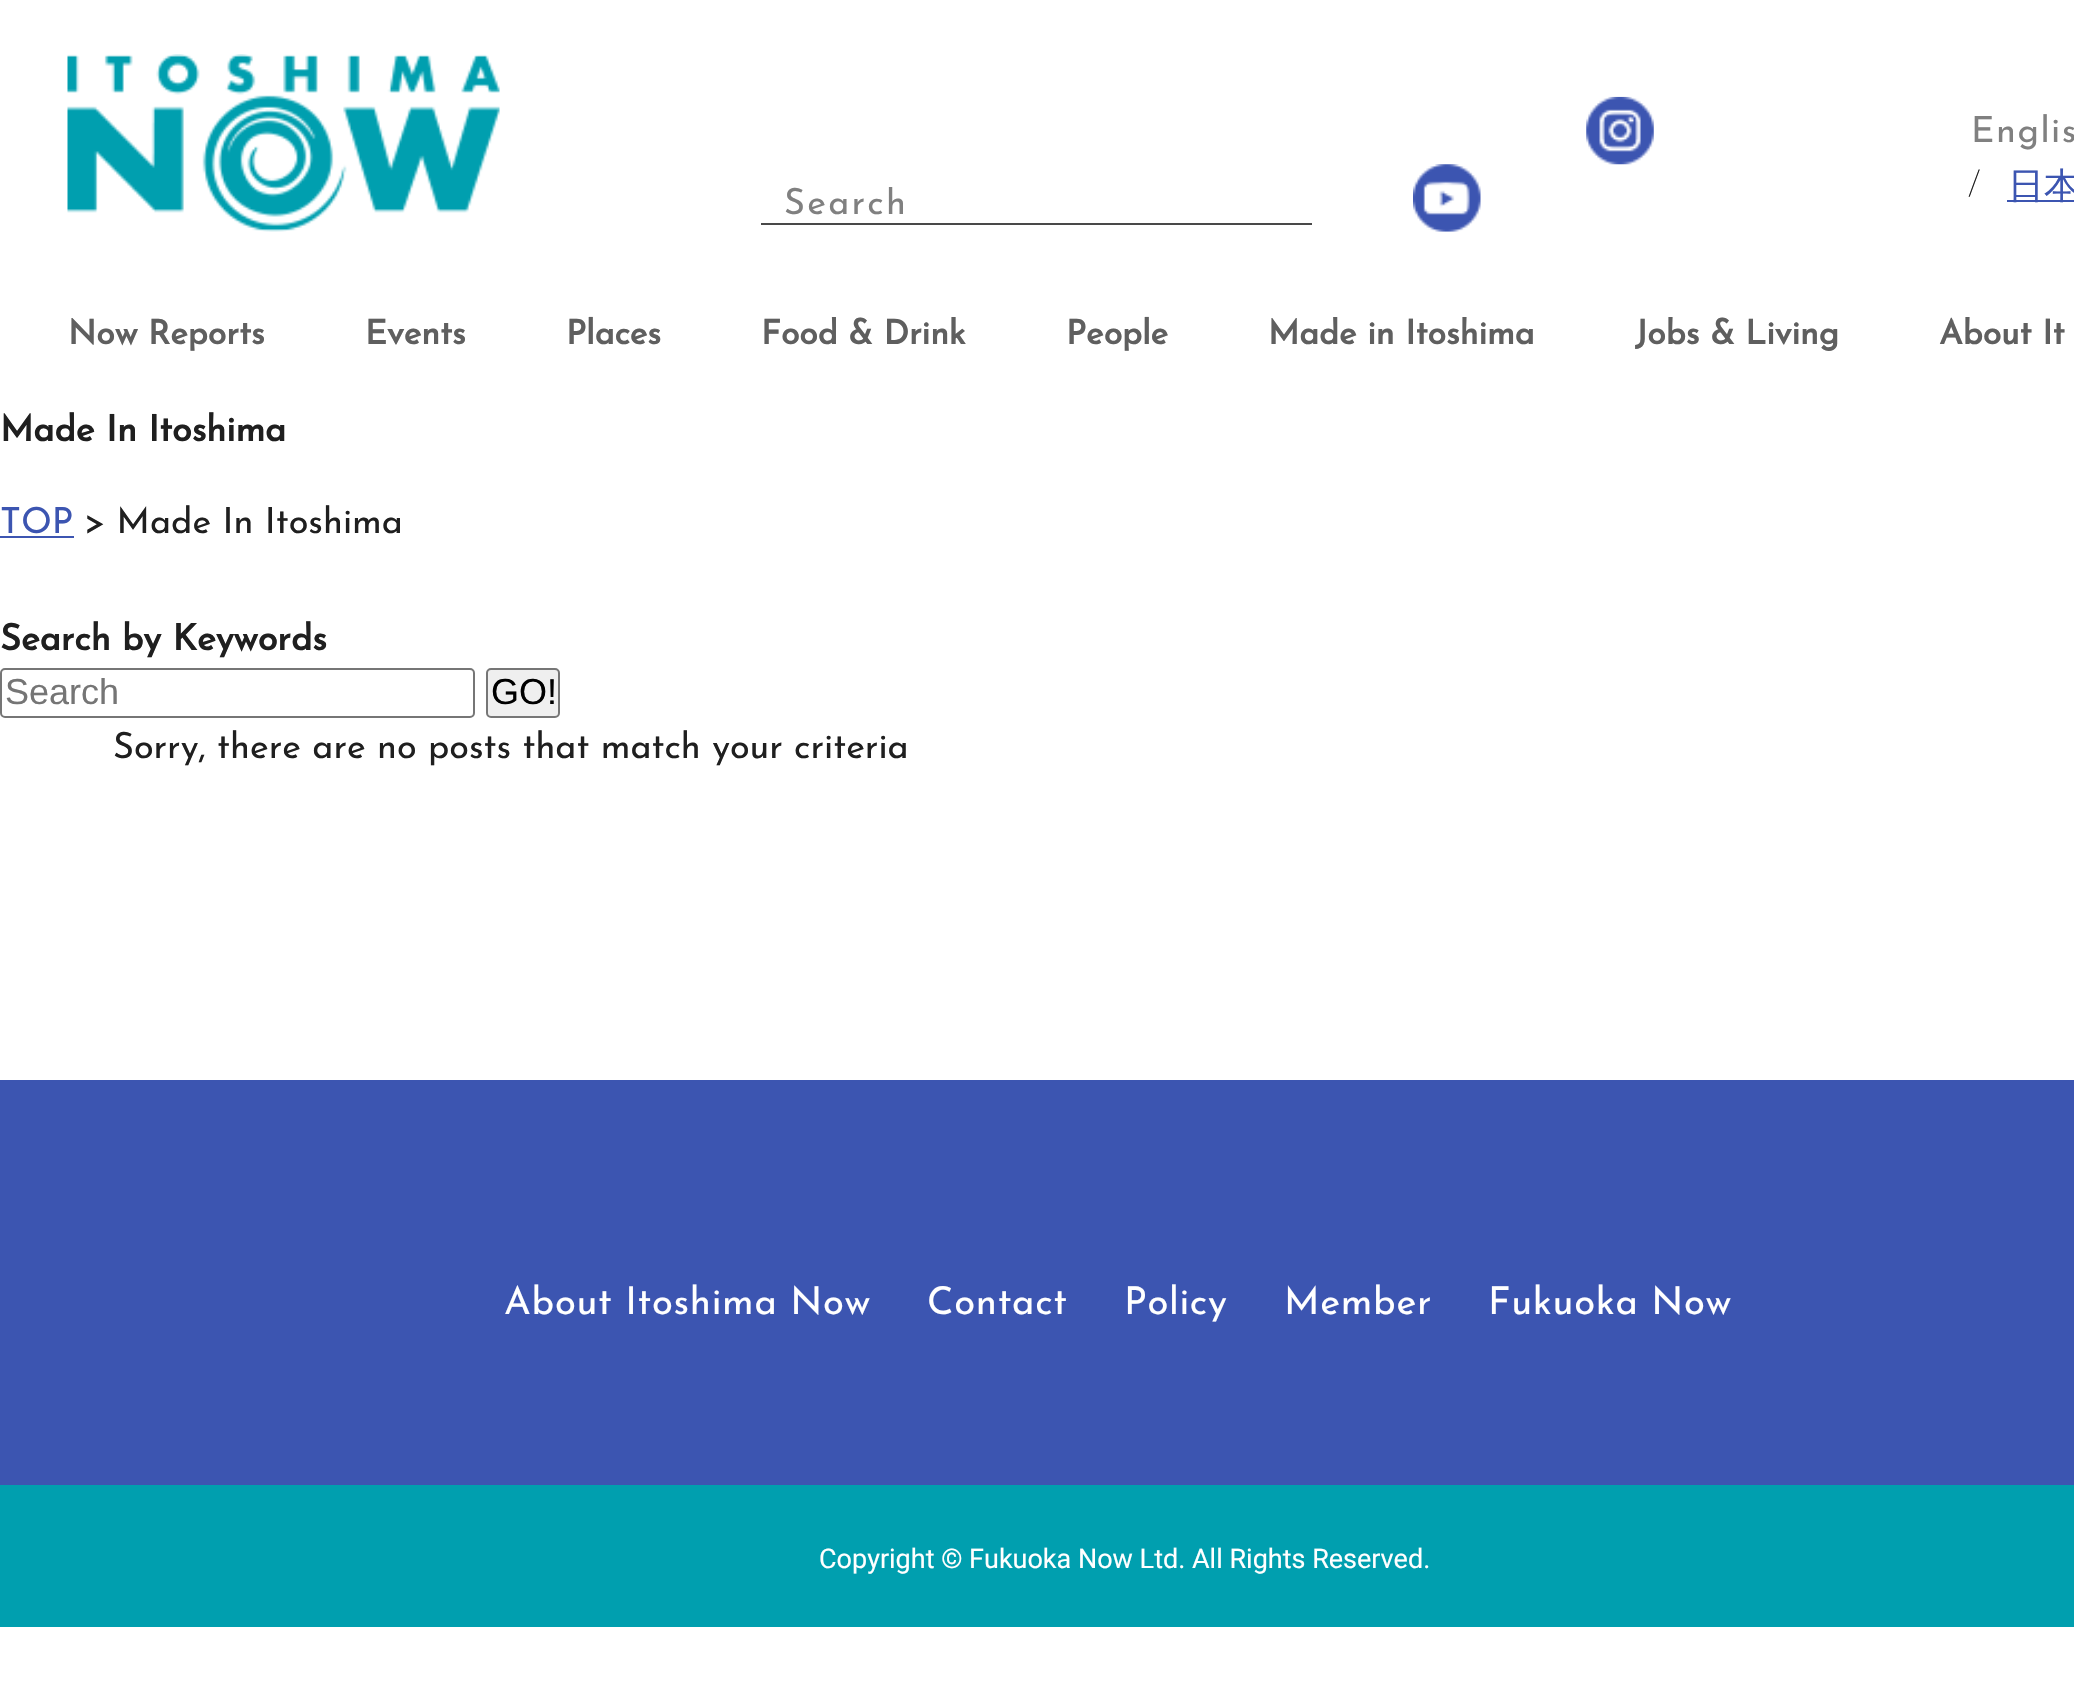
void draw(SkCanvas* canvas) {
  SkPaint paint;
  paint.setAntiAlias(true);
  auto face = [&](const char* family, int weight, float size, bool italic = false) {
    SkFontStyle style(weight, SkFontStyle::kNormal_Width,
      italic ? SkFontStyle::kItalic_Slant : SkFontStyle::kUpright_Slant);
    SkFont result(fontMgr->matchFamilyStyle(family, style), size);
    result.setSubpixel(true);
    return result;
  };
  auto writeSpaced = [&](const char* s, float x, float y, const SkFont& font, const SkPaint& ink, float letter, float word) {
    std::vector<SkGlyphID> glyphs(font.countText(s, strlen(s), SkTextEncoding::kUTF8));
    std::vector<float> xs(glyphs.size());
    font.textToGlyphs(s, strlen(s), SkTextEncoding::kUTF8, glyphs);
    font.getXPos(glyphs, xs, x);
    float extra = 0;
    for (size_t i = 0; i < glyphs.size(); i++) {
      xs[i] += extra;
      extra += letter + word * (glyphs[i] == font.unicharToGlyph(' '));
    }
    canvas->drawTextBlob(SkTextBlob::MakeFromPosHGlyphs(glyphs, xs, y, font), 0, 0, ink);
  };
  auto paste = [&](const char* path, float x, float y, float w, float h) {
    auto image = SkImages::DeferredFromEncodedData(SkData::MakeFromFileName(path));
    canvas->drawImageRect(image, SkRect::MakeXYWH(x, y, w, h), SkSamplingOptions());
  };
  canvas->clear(0xffffffff);
  paste("img/1.png", 67, 54, 433, 178);
  paint.setColor(0xff494949);
  canvas->drawRect(SkRect::MakeXYWH(761, 223, 551, 2), paint);
  paste("img/2.png", 1586, 96, 68, 69);
  paste("img/3.png", 1413, 164, 68, 68);
  paint.setColor(0xff3c55b1);
  canvas->drawRect(SkRect::MakeXYWH(2007, 200, 67, 2), paint);
  canvas->drawRect(SkRect::MakeXYWH(0, 536, 74, 2), paint);
  paint.setStroke(true);
  paint.setStrokeWidth(2);
  paint.setColor(0xff767676);
  canvas->drawRoundRect(SkRect::MakeXYWH(1, 669, 473, 48), 4, 4, paint);
  paint.setStroke(false);
  paint.setColor(0xffefefef);
  canvas->drawRoundRect(SkRect::MakeXYWH(487, 669, 72, 48), 4, 4, paint);
  paint.setStroke(true);
  paint.setColor(0xff767676);
  canvas->drawRoundRect(SkRect::MakeXYWH(487, 669, 72, 48), 4, 4, paint);
  paint.setStroke(false);
  paint.setColor(0xff3c55b1);
  canvas->drawRect(SkRect::MakeXYWH(0, 1080, 2074, 405), paint);
  paint.setColor(0xff009faf);
  canvas->drawRect(SkRect::MakeXYWH(0, 1485, 2074, 142), paint);
  canvas->save();
  canvas->clipRect(SkRect::MakeXYWH(783, 187, 457, 36));
  auto f0 = face("Josefin Sans", 400, 36);
  paint.setColor(0xff808080);
  writeSpaced("Search", 784, 214, f0, paint, 2.25f, 0);
  canvas->restore();
  writeSpaced("Englis", 1971, 142, f0, paint, 1.5f, 0);
  auto f1 = face("Josefin Sans", 200, 36);
  paint.setColor(0xff1f1f1f);
  canvas->drawString("/", 1968, 196, f1, paint);
  auto f2 = face("WenQuanYi Zen Hei", 500, 36);
  paint.setColor(0xff3c55b1);
  canvas->drawString("日本", 2008, 198, f2, paint);
  auto f3 = face("Josefin Sans", 700, 33.75f);
  paint.setColor(0xff5f5f5f);
  {
    const struct { const char* s; float x, y; } items[] = {
      {"Now Reports", 68, 344},
      {"Events", 365, 344},
      {"Places", 566, 344},
      {"Food & Drink", 761, 344},
      {"People", 1066, 344},
      {"Made in Itoshima", 1268, 344},
      {"Jobs & Living", 1635, 344},
      {"About It", 1939, 344},
    };
    for (auto [s, x, y] : items) {
      canvas->drawString(s, x, y, f3, paint);
    }
  }
  auto f4 = face("Josefin Sans", 700, 36);
  paint.setColor(0xff1f1f1f);
  canvas->drawString("Made In Itoshima", 0, 441, f4, paint);
  paint.setColor(0xff3c55b1);
  canvas->drawString("TOP", 0, 533, f0, paint);
  paint.setColor(0xff1f1f1f);
  canvas->drawString("> Made In Itoshima", 84, 533, f0, paint);
  canvas->drawString("Search by Keywords", 0, 650, f4, paint);
  auto f5 = face("Liberation Sans", 400, 36);
  paint.setColor(0xff757575);
  canvas->drawString("Search", 5, 704, f5, paint);
  paint.setColor(0xff000000);
  canvas->drawString("GO!", 491, 704, f5, paint);
  paint.setColor(0xff1f1f1f);
  canvas->drawString("Sorry, there are no posts that match your criteria", 113, 758, f0, paint);
  auto f6 = face("Josefin Sans", 400, 38.25f);
  paint.setColor(0xffffffff);
  {
    const struct { const char* s; float x, y; } items[] = {
      {"About Itoshima Now", 504, 1314},
      {"Contact", 927, 1314},
      {"Policy", 1124, 1314},
      {"Member", 1284, 1314},
      {"Fukuoka Now", 1488, 1314},
    };
    for (auto [s, x, y] : items) {
      writeSpaced(s, x, y, f6, paint, 0.7f, 0);
    }
  }
  auto f7 = face("Roboto", 400, 27);
  canvas->drawString("Copyright © Fukuoka Now Ltd. All Rights Reserved.", 819, 1568, f7, paint);
}
